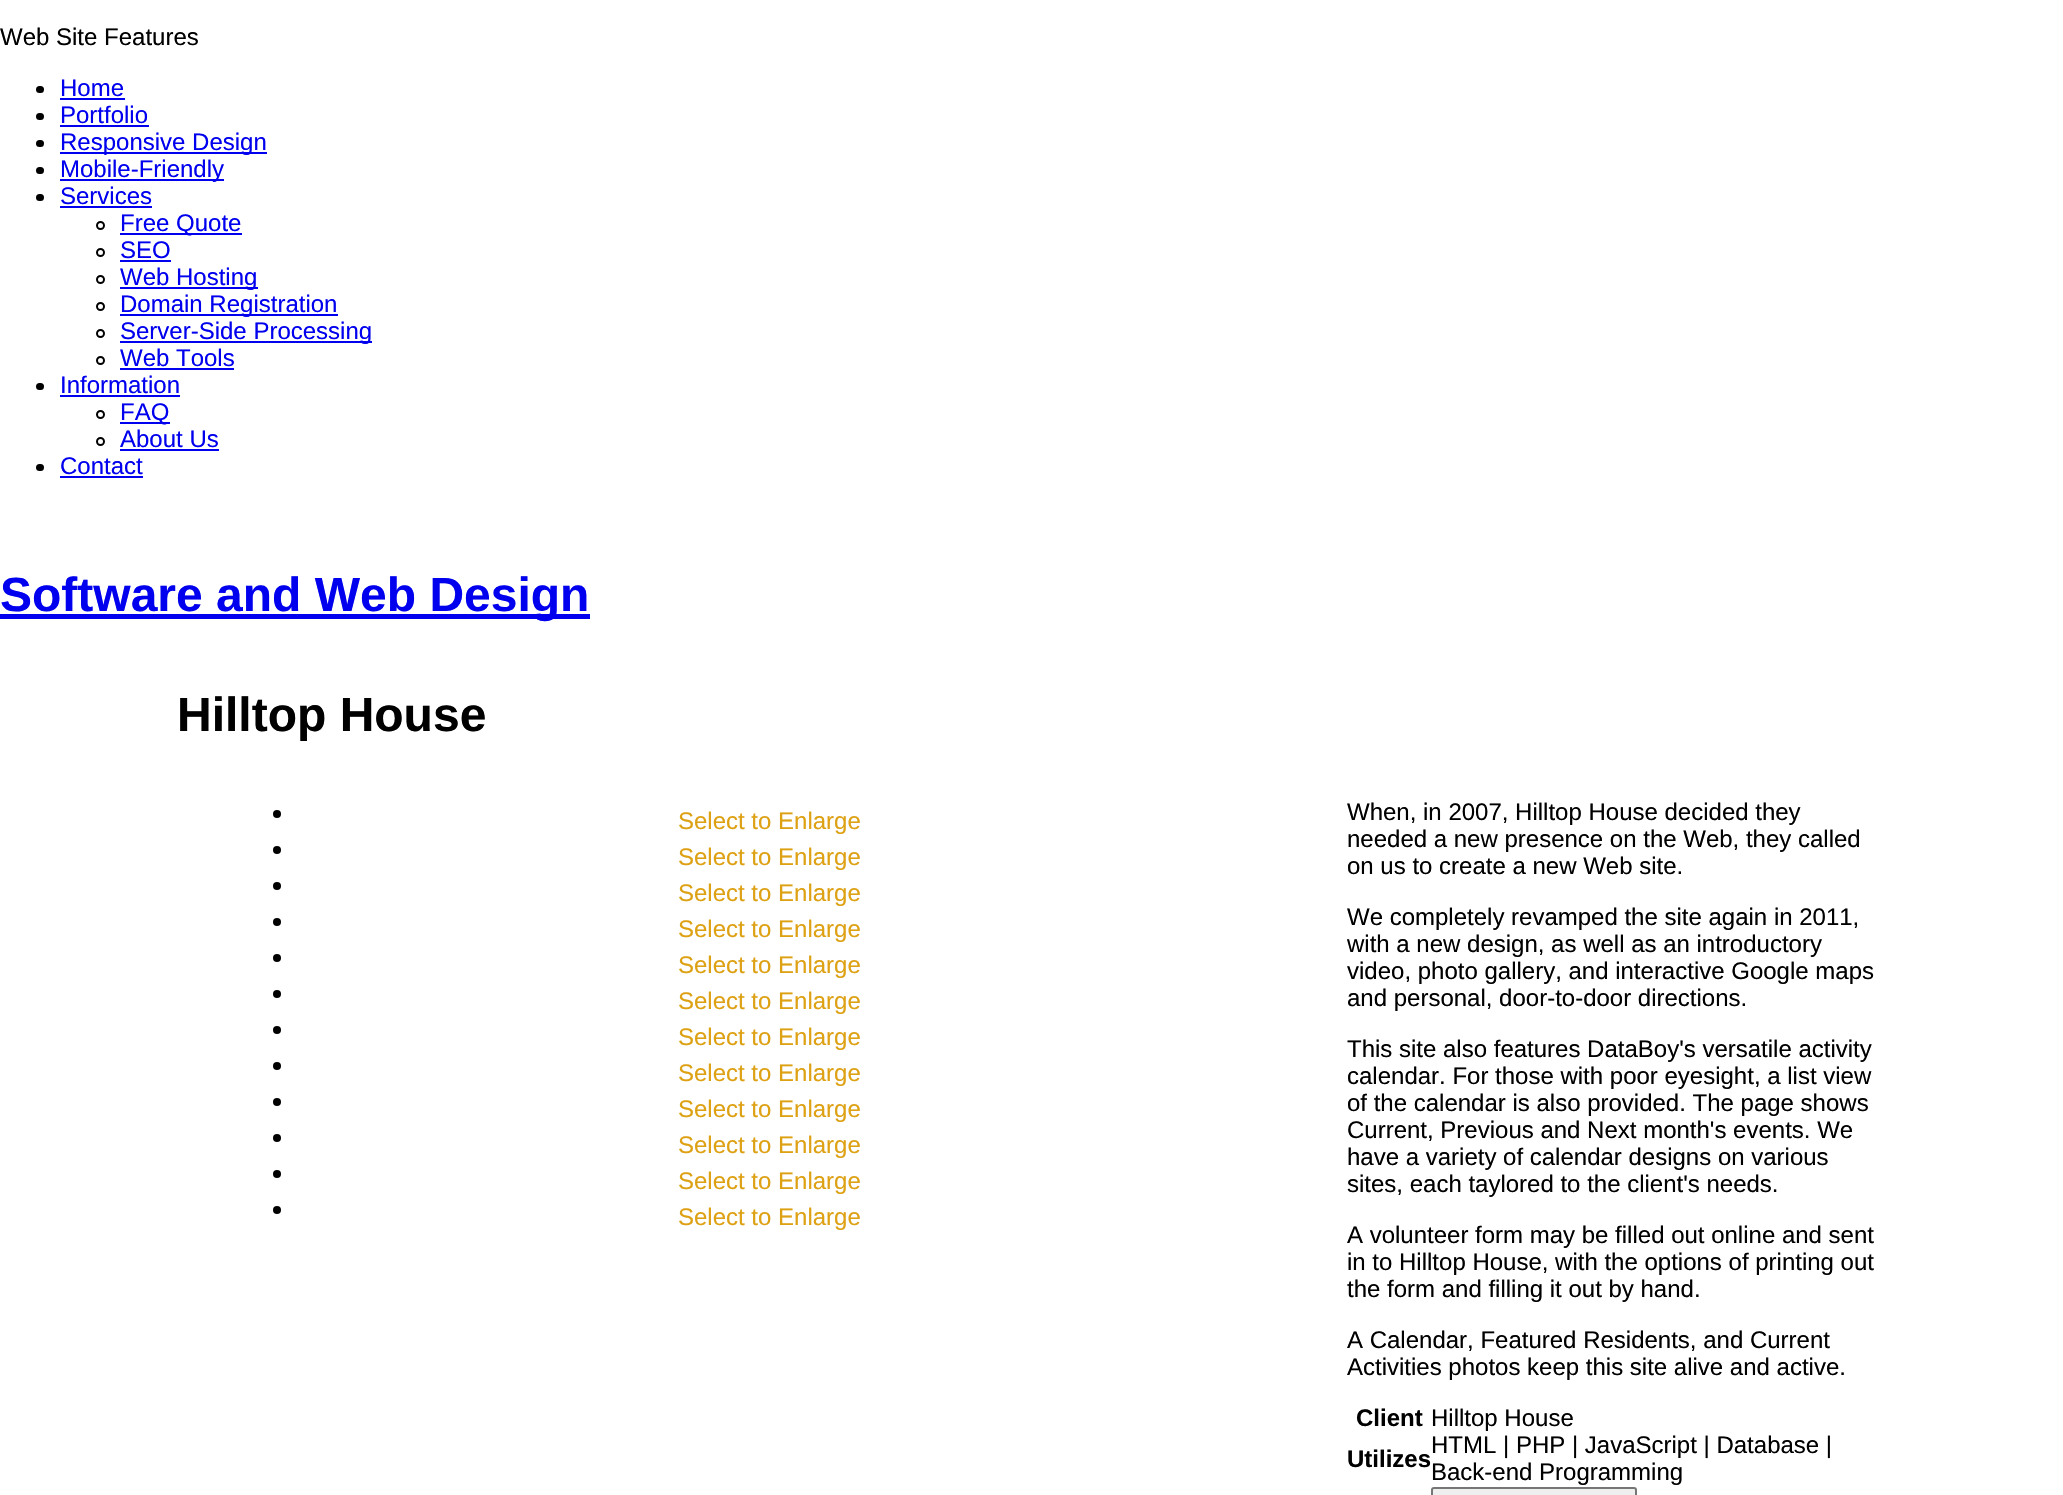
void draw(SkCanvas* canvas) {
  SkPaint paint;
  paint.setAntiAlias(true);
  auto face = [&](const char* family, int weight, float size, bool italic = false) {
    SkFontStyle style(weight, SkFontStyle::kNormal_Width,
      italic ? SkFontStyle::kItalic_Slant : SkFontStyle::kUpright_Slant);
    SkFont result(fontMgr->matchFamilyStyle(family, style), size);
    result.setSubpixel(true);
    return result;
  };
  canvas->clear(0xffffffff);
  paint.setColor(0xff000000);
  canvas->drawRoundRect(SkRect::MakeXYWH(36, 86, 8, 7), 3.5f, 3.5f, paint);
  paint.setColor(0xff0000ee);
  canvas->drawRect(SkRect::MakeXYWH(60, 98, 65, 2), paint);
  paint.setColor(0xff000000);
  canvas->drawRoundRect(SkRect::MakeXYWH(36, 113, 8, 7), 3.5f, 3.5f, paint);
  paint.setColor(0xff0000ee);
  canvas->drawRect(SkRect::MakeXYWH(60, 125, 89, 2), paint);
  paint.setColor(0xff000000);
  canvas->drawRoundRect(SkRect::MakeXYWH(36, 140, 8, 7), 3.5f, 3.5f, paint);
  paint.setColor(0xff0000ee);
  canvas->drawRect(SkRect::MakeXYWH(60, 152, 207, 2), paint);
  paint.setColor(0xff000000);
  canvas->drawRoundRect(SkRect::MakeXYWH(36, 167, 8, 7), 3.5f, 3.5f, paint);
  paint.setColor(0xff0000ee);
  canvas->drawRect(SkRect::MakeXYWH(60, 179, 164, 2), paint);
  paint.setColor(0xff000000);
  canvas->drawRoundRect(SkRect::MakeXYWH(36, 194, 8, 7), 3.5f, 3.5f, paint);
  paint.setColor(0xff0000ee);
  canvas->drawRect(SkRect::MakeXYWH(60, 206, 92, 2), paint);
  paint.setStroke(true);
  paint.setStrokeWidth(2);
  paint.setColor(0xff000000);
  canvas->drawCircle(100.5f, 225.5f, 3.5f, paint);
  paint.setStroke(false);
  paint.setColor(0xff0000ee);
  canvas->drawRect(SkRect::MakeXYWH(120, 233, 122, 2), paint);
  paint.setStroke(true);
  paint.setColor(0xff000000);
  canvas->drawCircle(100.5f, 252.5f, 3.5f, paint);
  paint.setStroke(false);
  paint.setColor(0xff0000ee);
  canvas->drawRect(SkRect::MakeXYWH(120, 260, 51, 2), paint);
  paint.setStroke(true);
  paint.setColor(0xff000000);
  canvas->drawCircle(100.5f, 279.5f, 3.5f, paint);
  paint.setStroke(false);
  paint.setColor(0xff0000ee);
  canvas->drawRect(SkRect::MakeXYWH(120, 287, 138, 2), paint);
  paint.setStroke(true);
  paint.setColor(0xff000000);
  canvas->drawCircle(100.5f, 306.5f, 3.5f, paint);
  paint.setStroke(false);
  paint.setColor(0xff0000ee);
  canvas->drawRect(SkRect::MakeXYWH(120, 314, 218, 2), paint);
  paint.setStroke(true);
  paint.setColor(0xff000000);
  canvas->drawCircle(100.5f, 333.5f, 3.5f, paint);
  paint.setStroke(false);
  paint.setColor(0xff0000ee);
  canvas->drawRect(SkRect::MakeXYWH(120, 341, 252, 2), paint);
  paint.setStroke(true);
  paint.setColor(0xff000000);
  canvas->drawCircle(100.5f, 360.5f, 3.5f, paint);
  paint.setStroke(false);
  paint.setColor(0xff0000ee);
  canvas->drawRect(SkRect::MakeXYWH(120, 368, 114, 2), paint);
  paint.setColor(0xff000000);
  canvas->drawRoundRect(SkRect::MakeXYWH(36, 383, 8, 7), 3.5f, 3.5f, paint);
  paint.setColor(0xff0000ee);
  canvas->drawRect(SkRect::MakeXYWH(60, 395, 120, 2), paint);
  paint.setStroke(true);
  paint.setColor(0xff000000);
  canvas->drawCircle(100.5f, 414.5f, 3.5f, paint);
  paint.setStroke(false);
  paint.setColor(0xff0000ee);
  canvas->drawRect(SkRect::MakeXYWH(120, 422, 50, 2), paint);
  paint.setStroke(true);
  paint.setColor(0xff000000);
  canvas->drawCircle(100.5f, 441.5f, 3.5f, paint);
  paint.setStroke(false);
  paint.setColor(0xff0000ee);
  canvas->drawRect(SkRect::MakeXYWH(120, 449, 99, 2), paint);
  paint.setColor(0xff000000);
  canvas->drawRoundRect(SkRect::MakeXYWH(36, 464, 8, 7), 3.5f, 3.5f, paint);
  paint.setColor(0xff0000ee);
  canvas->drawRect(SkRect::MakeXYWH(60, 476, 83, 2), paint);
  canvas->drawRect(SkRect::MakeXYWH(0, 614, 590, 5), paint);
  paint.setColor(0xff000000);
  canvas->drawCircle(277, 814, 4, paint);
  canvas->drawCircle(277, 850, 4, paint);
  canvas->drawCircle(277, 886, 4, paint);
  canvas->drawCircle(277, 922, 4, paint);
  canvas->drawCircle(277, 958, 4, paint);
  canvas->drawCircle(277, 994, 4, paint);
  canvas->drawCircle(277, 1030, 4, paint);
  canvas->drawCircle(277, 1066, 4, paint);
  canvas->drawCircle(277, 1102, 4, paint);
  canvas->drawCircle(277, 1138, 4, paint);
  canvas->drawCircle(277, 1174, 4, paint);
  canvas->drawCircle(277, 1210, 4, paint);
  paint.setColor(0xffefefef);
  canvas->drawRoundRect(SkRect::MakeXYWH(1432, 1488, 204, 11), 2, 2, paint);
  paint.setStroke(true);
  paint.setColor(0xff767676);
  canvas->drawRoundRect(SkRect::MakeXYWH(1432, 1488, 204, 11), 2, 2, paint);
  auto f0 = face("Liberation Sans", 400, 24);
  paint.setStroke(false);
  paint.setColor(0xff000000);
  canvas->drawString("Web Site Features", 0, 45, f0, paint);
  paint.setColor(0xff0000ee);
  {
    const struct { const char* s; float x, y; } items[] = {
      {"Home", 60, 96},
      {"Portfolio", 60, 123},
      {"Responsive Design", 60, 150},
      {"Mobile-Friendly", 60, 177},
      {"Services", 60, 204},
      {"Free Quote", 120, 231},
      {"SEO", 120, 258},
      {"Web Hosting", 120, 285},
      {"Domain Registration", 120, 312},
      {"Server-Side Processing", 120, 339},
      {"Web Tools", 120, 366},
      {"Information", 60, 393},
      {"FAQ", 120, 420},
      {"About Us", 120, 447},
      {"Contact", 60, 474},
    };
    for (auto [s, x, y] : items) {
      canvas->drawString(s, x, y, f0, paint);
    }
  }
  auto f1 = face("Liberation Sans", 700, 48);
  canvas->drawString("Software and Web Design", 0, 611, f1, paint);
  paint.setColor(0xff000000);
  canvas->drawString("Hilltop House", 177, 731, f1, paint);
  paint.setColor(0xffdda113);
  {
    const struct { const char* s; float x, y; } items[] = {
      {"Select to Enlarge", 678, 829},
      {"Select to Enlarge", 678, 865},
      {"Select to Enlarge", 678, 901},
      {"Select to Enlarge", 678, 937},
      {"Select to Enlarge", 678, 973},
      {"Select to Enlarge", 678, 1009},
      {"Select to Enlarge", 678, 1045},
      {"Select to Enlarge", 678, 1081},
      {"Select to Enlarge", 678, 1117},
      {"Select to Enlarge", 678, 1153},
      {"Select to Enlarge", 678, 1189},
      {"Select to Enlarge", 678, 1225},
    };
    for (auto [s, x, y] : items) {
      canvas->drawString(s, x, y, f0, paint);
    }
  }
  paint.setColor(0xff000000);
  {
    const struct { const char* s; float x, y; } items[] = {
      {"When, in 2007, Hilltop House decided they", 1347, 820},
      {"needed a new presence on the Web, they called", 1347, 847},
      {"on us to create a new Web site.", 1347, 874},
      {"We completely revamped the site again in 2011,", 1347, 925},
      {"with a new design, as well as an introductory", 1347, 952},
      {"video, photo gallery, and interactive Google maps", 1347, 979},
      {"and personal, door-to-door directions.", 1347, 1006},
      {"This site also features DataBoy's versatile activity", 1347, 1057},
      {"calendar. For those with poor eyesight, a list view", 1347, 1084},
      {"of the calendar is also provided. The page shows", 1347, 1111},
      {"Current, Previous and Next month's events. We", 1347, 1138},
      {"have a variety of calendar designs on various", 1347, 1165},
      {"sites, each taylored to the client's needs.", 1347, 1192},
      {"A volunteer form may be filled out online and sent", 1347, 1243},
      {"in to Hilltop House, with the options of printing out", 1347, 1270},
      {"the form and filling it out by hand.", 1347, 1297},
      {"A Calendar, Featured Residents, and Current", 1347, 1348},
      {"Activities photos keep this site alive and active.", 1347, 1375},
    };
    for (auto [s, x, y] : items) {
      canvas->drawString(s, x, y, f0, paint);
    }
  }
  auto f2 = face("Liberation Sans", 700, 24);
  canvas->drawString("Client", 1356, 1426, f2, paint);
  canvas->drawString("Hilltop House", 1431, 1426, f0, paint);
  canvas->drawString("Utilizes", 1347, 1467, f2, paint);
  canvas->drawString("HTML | PHP | JavaScript | Database |", 1431, 1453, f0, paint);
  canvas->drawString("Back-end Programming", 1431, 1480, f0, paint);
}
